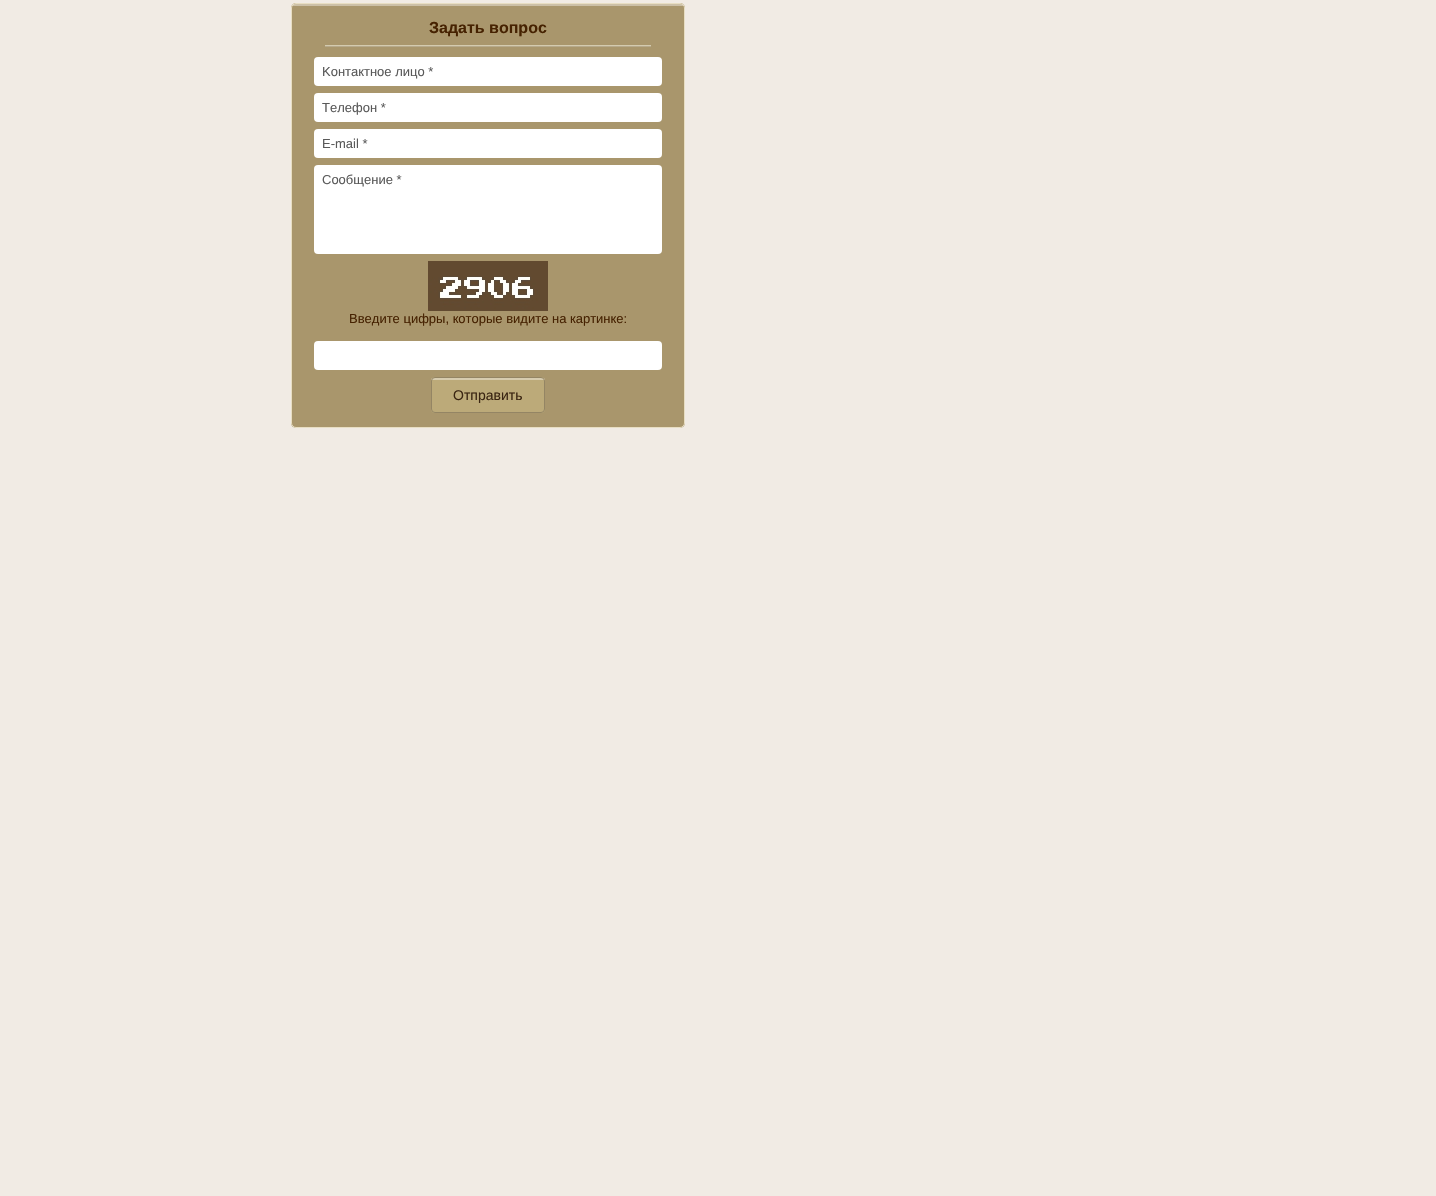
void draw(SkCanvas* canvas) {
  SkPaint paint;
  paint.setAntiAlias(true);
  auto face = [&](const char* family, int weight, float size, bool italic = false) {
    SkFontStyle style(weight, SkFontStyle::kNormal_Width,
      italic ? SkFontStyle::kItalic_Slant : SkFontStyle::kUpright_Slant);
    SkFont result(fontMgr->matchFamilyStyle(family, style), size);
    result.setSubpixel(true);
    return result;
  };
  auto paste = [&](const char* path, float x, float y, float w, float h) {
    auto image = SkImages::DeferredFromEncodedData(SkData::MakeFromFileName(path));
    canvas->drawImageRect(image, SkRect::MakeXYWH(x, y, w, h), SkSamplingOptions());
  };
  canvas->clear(0xfff1ebe4);
  paint.setColor(0xffa9966c);
  canvas->drawRoundRect(SkRect::MakeXYWH(291, 3, 394, 425), 5, 5, paint);
  paste("img/1.png", 291, 4, 394, 2);
  paint.setStroke(true);
  paint.setStrokeWidth(1);
  paint.setColor(0xffe8dec3);
  canvas->drawRoundRect(SkRect::MakeXYWH(291.5f, 3.5f, 393, 424), 4.5f, 4.5f, paint);
  paint.setStroke(false);
  paint.setColor(0xffd4cbaf);
  canvas->drawRect(SkRect::MakeXYWH(325, 45, 326, 1), paint);
  paint.setColor(0xffb6a98b);
  canvas->drawRect(SkRect::MakeXYWH(325, 46, 326, 1), paint);
  paint.setColor(0xffffffff);
  canvas->drawRoundRect(SkRect::MakeXYWH(314, 57, 348, 29), 4, 4, paint);
  canvas->drawRoundRect(SkRect::MakeXYWH(314, 93, 348, 29), 4, 4, paint);
  canvas->drawRoundRect(SkRect::MakeXYWH(314, 129, 348, 29), 4, 4, paint);
  canvas->drawRoundRect(SkRect::MakeXYWH(314, 165, 348, 89), 4, 4, paint);
  paste("img/2.png", 428, 261, 120, 50);
  canvas->drawRoundRect(SkRect::MakeXYWH(314, 341, 348, 29), 4, 4, paint);
  paint.setColor(0xffbcaa79);
  canvas->drawRoundRect(SkRect::MakeXYWH(431, 377, 114, 36), 4, 4, paint);
  paste("img/3.png", 431, 378, 114, 2);
  paint.setStroke(true);
  paint.setColor(0xff948564);
  canvas->drawRoundRect(SkRect::MakeXYWH(431.5f, 377.5f, 113, 35), 3.5f, 3.5f, paint);
  auto f0 = face("Liberation Sans", 700, 16);
  paint.setStroke(false);
  paint.setColor(0xff462201);
  canvas->drawString("Задать вопрос", 429, 33, f0, paint);
  auto f1 = face("Liberation Sans", 400, 13);
  paint.setColor(0xff595959);
  {
    const struct { const char* s; float x, y; } items[] = {
      {"Kонтактное лицо *", 322, 76},
      {"Телефон *", 322, 112},
      {"E-mail *", 322, 148},
      {"Сообщение *", 322, 184},
    };
    for (auto [s, x, y] : items) {
      canvas->drawString(s, x, y, f1, paint);
    }
  }
  paint.setColor(0xff462201);
  canvas->drawString("Введите цифры, которые видите на картинке:", 349, 323, f1, paint);
  auto f2 = face("Liberation Sans", 400, 14);
  paint.setColor(0xff3a2512);
  canvas->drawString("Oтправить", 453, 400, f2, paint);
}
